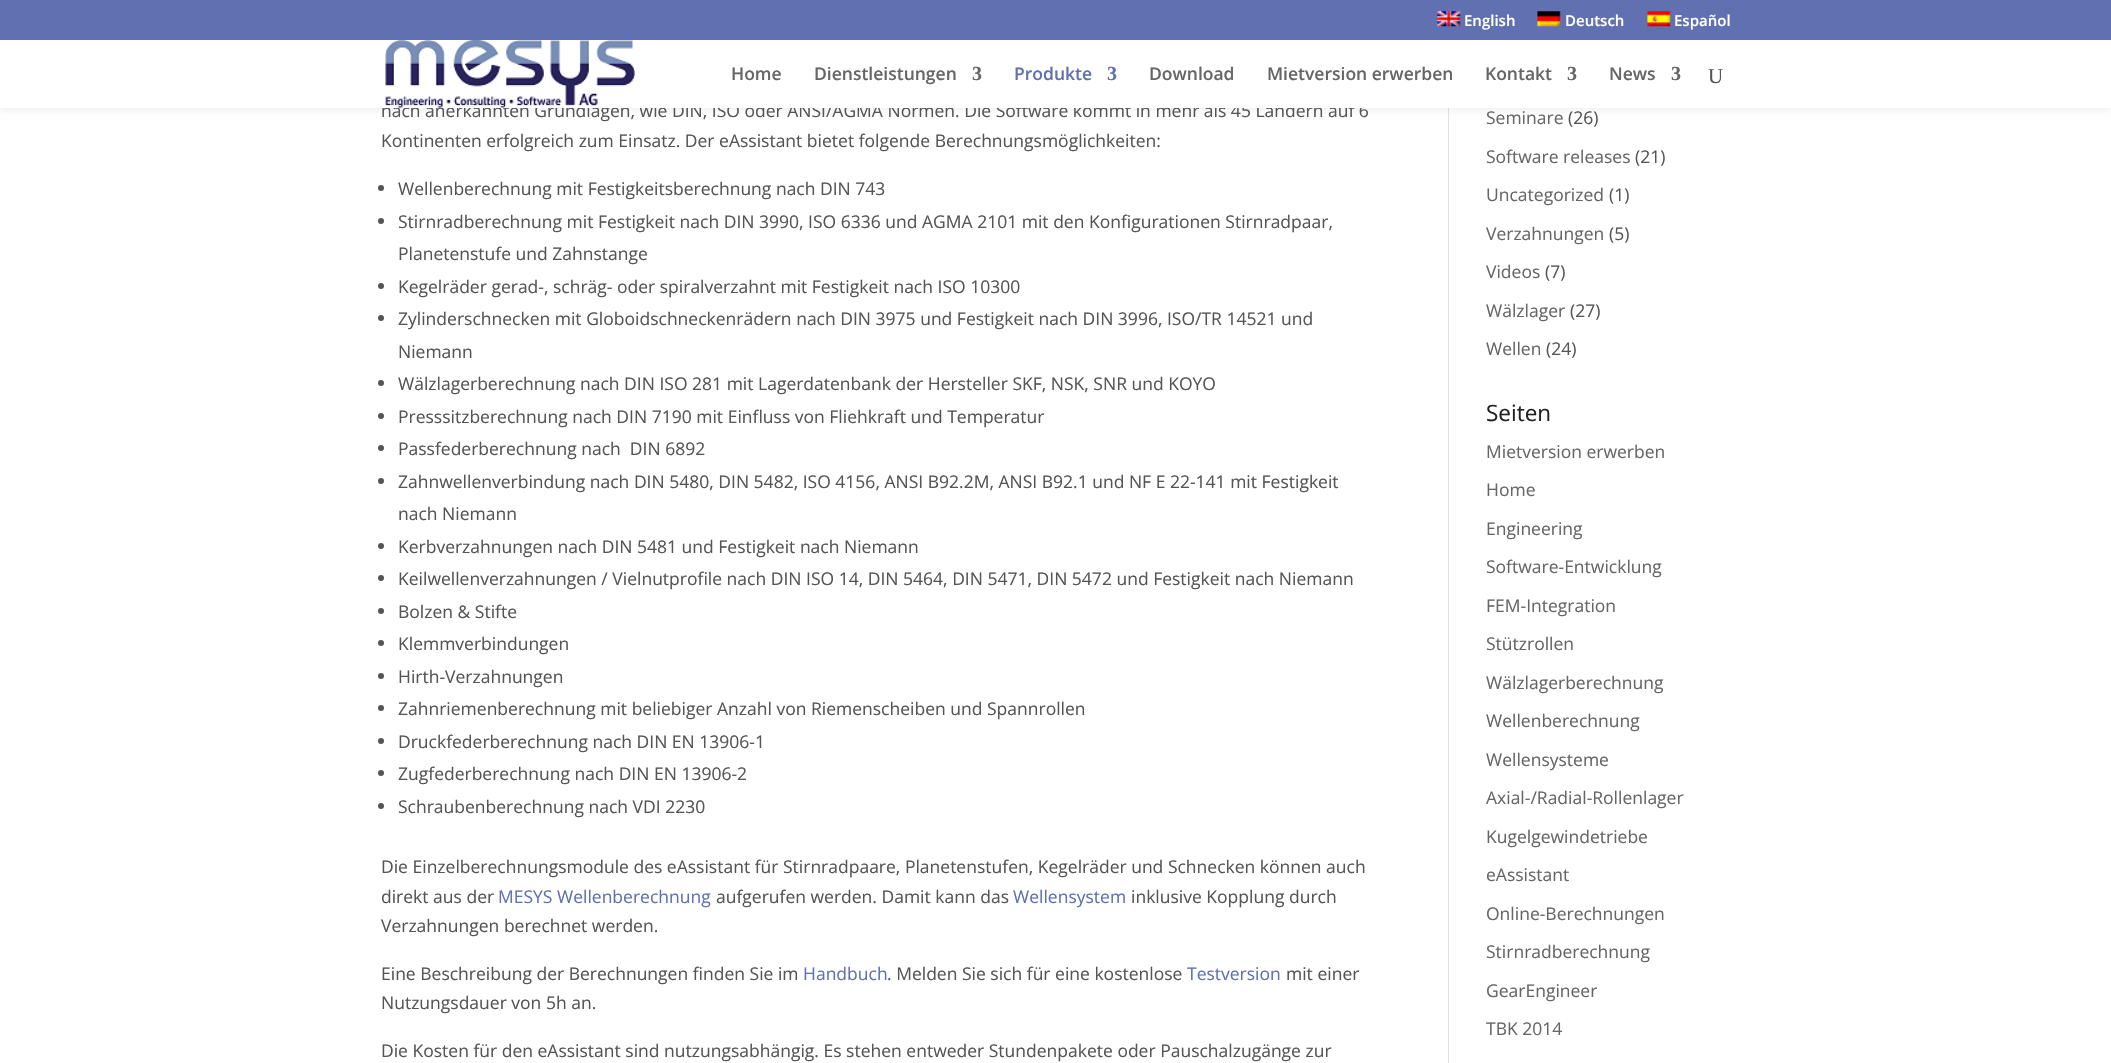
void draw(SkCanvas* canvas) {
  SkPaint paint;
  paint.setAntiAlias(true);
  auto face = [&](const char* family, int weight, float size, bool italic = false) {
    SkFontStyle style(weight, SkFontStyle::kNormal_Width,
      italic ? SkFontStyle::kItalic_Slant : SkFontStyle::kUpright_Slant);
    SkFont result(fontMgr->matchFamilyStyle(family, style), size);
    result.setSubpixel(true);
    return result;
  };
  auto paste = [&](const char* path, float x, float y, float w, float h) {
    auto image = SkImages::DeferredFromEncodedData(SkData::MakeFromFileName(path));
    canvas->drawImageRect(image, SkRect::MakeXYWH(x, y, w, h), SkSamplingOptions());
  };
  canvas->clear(0xffffffff);
  paint.setColor(0xffe2e2e2);
  canvas->drawRect(SkRect::MakeXYWH(1448, 108, 1, 955), paint);
  paint.setColor(0x1a000000);
  paint.setMaskFilter(SkMaskFilter::MakeBlur(kNormal_SkBlurStyle, 4.5f));
  canvas->drawRect(SkRect::MakeXYWH(0, 40, 2111, 68), paint);
  paint.setMaskFilter(nullptr);
  paint.setColor(0xff6070b0);
  canvas->drawRect(SkRect::MakeXYWH(0, 0, 2111, 40), paint);
  paste("img/1.png", 1437, 11, 24, 16);
  paste("img/2.png", 1537, 11, 24, 16);
  paste("img/3.png", 1647, 11, 24, 16);
  paint.setColor(0xff555555);
  canvas->drawCircle(381, 188, 3, paint);
  canvas->drawCircle(381, 221, 3, paint);
  canvas->drawCircle(381, 286, 3, paint);
  canvas->drawCircle(381, 318, 3, paint);
  canvas->drawCircle(381, 383, 3, paint);
  canvas->drawCircle(381, 416, 3, paint);
  canvas->drawCircle(381, 448, 3, paint);
  canvas->drawCircle(381, 481, 3, paint);
  canvas->drawCircle(381, 546, 3, paint);
  canvas->drawCircle(381, 578, 3, paint);
  canvas->drawCircle(381, 611, 3, paint);
  canvas->drawCircle(381, 643, 3, paint);
  canvas->drawCircle(381, 676, 3, paint);
  canvas->drawCircle(381, 708, 3, paint);
  canvas->drawCircle(381, 741, 3, paint);
  canvas->drawCircle(381, 773, 3, paint);
  canvas->drawCircle(381, 806, 3, paint);
  auto f0 = face("Open Sans", 600, 15);
  paint.setColor(0xffffffff);
  {
    const struct { const char* s; float x, y; } items[] = {
      {"English", 1464, 26},
      {"Deutsch", 1565, 26},
      {"Español", 1674, 26},
    };
    for (auto [s, x, y] : items) {
      canvas->drawString(s, x, y, f0, paint);
    }
  }
  auto f1 = face("Open Sans", 400, 17.5f);
  paint.setColor(0xff555555);
  canvas->drawString("nach anerkannten Grundlagen, wie DIN, ISO oder ANSI/AGMA Normen. Die Software kommt in mehr als 45 Ländern auf 6", 381, 117, f1, paint);
  paint.setColor(0xffffffff);
  canvas->drawRect(SkRect::MakeXYWH(0, 40, 2111, 68), paint);
  auto f2 = face("Liberation Serif", 400, 21);
  paint.setColor(0xff555555);
  canvas->drawString("U", 1708, 83, f2, paint);
  auto f3 = face("Liberation Serif", 700, 20);
  paint.setColor(0xff666666);
  canvas->drawString("3", 1671, 80, f3, paint);
  auto f4 = face("Open Sans", 600, 17.5f);
  canvas->drawString("News", 1609, 80, f4, paint);
  canvas->drawString("3", 1567, 80, f3, paint);
  {
    const struct { const char* s; float x, y; } items[] = {
      {"Kontakt", 1485, 80},
      {"Mietversion erwerben", 1267, 80},
      {"Download", 1149, 80},
    };
    for (auto [s, x, y] : items) {
      canvas->drawString(s, x, y, f4, paint);
    }
  }
  paint.setColor(0xff6070b0);
  canvas->drawString("3", 1107, 80, f3, paint);
  canvas->drawString("Produkte", 1014, 80, f4, paint);
  paint.setColor(0xff666666);
  canvas->drawString("3", 972, 80, f3, paint);
  canvas->drawString("Dienstleistungen", 814, 80, f4, paint);
  canvas->drawString("Home", 731, 80, f4, paint);
  paste("img/4.png", 385, 40, 250, 68);
  paint.setColor(0xff555555);
  {
    const struct { const char* s; float x, y; } items[] = {
      {"Kontinenten erfolgreich zum Einsatz. Der eAssistant bietet folgende Berechnungsmöglichkeiten:", 381, 147},
      {"Wellenberechnung mit Festigkeitsberechnung nach DIN 743", 398, 195},
      {"Stirnradberechnung mit Festigkeit nach DIN 3990, ISO 6336 und AGMA 2101 mit den Konfigurationen Stirnradpaar,", 398, 228},
      {"Planetenstufe und Zahnstange", 398, 260},
      {"Kegelräder gerad-, schräg- oder spiralverzahnt mit Festigkeit nach ISO 10300", 398, 293},
      {"Zylinderschnecken mit Globoidschneckenrädern nach DIN 3975 und Festigkeit nach DIN 3996, ISO/TR 14521 und", 398, 325},
      {"Niemann", 398, 358},
      {"Wälzlagerberechnung nach DIN ISO 281 mit Lagerdatenbank der Hersteller SKF, NSK, SNR und KOYO", 398, 390},
      {"Presssitzberechnung nach DIN 7190 mit Einfluss von Fliehkraft und Temperatur", 398, 423},
      {"Passfederberechnung nach  DIN 6892", 398, 455},
      {"Zahnwellenverbindung nach DIN 5480, DIN 5482, ISO 4156, ANSI B92.2M, ANSI B92.1 und NF E 22-141 mit Festigkeit", 398, 488},
      {"nach Niemann", 398, 520},
      {"Kerbverzahnungen nach DIN 5481 und Festigkeit nach Niemann", 398, 553},
      {"Keilwellenverzahnungen / Vielnutprofile nach DIN ISO 14, DIN 5464, DIN 5471, DIN 5472 und Festigkeit nach Niemann", 398, 585},
      {"Bolzen & Stifte", 398, 618},
      {"Klemmverbindungen", 398, 650},
      {"Hirth-Verzahnungen", 398, 683},
      {"Zahnriemenberechnung mit beliebiger Anzahl von Riemenscheiben und Spannrollen", 398, 715},
      {"Druckfederberechnung nach DIN EN 13906-1", 398, 748},
      {"Zugfederberechnung nach DIN EN 13906-2", 398, 780},
      {"Schraubenberechnung nach VDI 2230", 398, 813},
      {"Die Einzelberechnungsmodule des eAssistant für Stirnradpaare, Planetenstufen, Kegelräder und Schnecken können auch", 381, 873},
      {"direkt aus der", 381, 903},
    };
    for (auto [s, x, y] : items) {
      canvas->drawString(s, x, y, f1, paint);
    }
  }
  paint.setColor(0xff6070b0);
  canvas->drawString("MESYS Wellenberechnung", 498, 903, f1, paint);
  paint.setColor(0xff555555);
  canvas->drawString("aufgerufen werden. Damit kann das", 716, 903, f1, paint);
  paint.setColor(0xff6070b0);
  canvas->drawString("Wellensystem", 1013, 903, f1, paint);
  paint.setColor(0xff555555);
  {
    const struct { const char* s; float x, y; } items[] = {
      {"inklusive Kopplung durch", 1131, 903},
      {"Verzahnungen berechnet werden.", 381, 932},
      {"Eine Beschreibung der Berechnungen finden Sie im", 381, 980},
    };
    for (auto [s, x, y] : items) {
      canvas->drawString(s, x, y, f1, paint);
    }
  }
  paint.setColor(0xff6070b0);
  canvas->drawString("Handbuch", 803, 980, f1, paint);
  paint.setColor(0xff555555);
  canvas->drawString(". Melden Sie sich für eine kostenlose", 887, 980, f1, paint);
  paint.setColor(0xff6070b0);
  canvas->drawString("Testversion", 1187, 980, f1, paint);
  paint.setColor(0xff555555);
  {
    const struct { const char* s; float x, y; } items[] = {
      {"mit einer", 1286, 980},
      {"Nutzungsdauer von 5h an.", 381, 1009},
      {"Die Kosten für den eAssistant sind nutzungsabhängig. Es stehen entweder Stundenpakete oder Pauschalzugänge zur", 381, 1057},
    };
    for (auto [s, x, y] : items) {
      canvas->drawString(s, x, y, f1, paint);
    }
  }
  paint.setColor(0xff666666);
  canvas->drawString("Seminare", 1486, 124, f1, paint);
  paint.setColor(0xff555555);
  canvas->drawString("(26)", 1568, 124, f1, paint);
  paint.setColor(0xff666666);
  canvas->drawString("Software releases", 1486, 163, f1, paint);
  paint.setColor(0xff555555);
  canvas->drawString("(21)", 1635, 163, f1, paint);
  paint.setColor(0xff666666);
  canvas->drawString("Uncategorized", 1486, 201, f1, paint);
  paint.setColor(0xff555555);
  canvas->drawString("(1)", 1609, 201, f1, paint);
  paint.setColor(0xff666666);
  canvas->drawString("Verzahnungen", 1486, 240, f1, paint);
  paint.setColor(0xff555555);
  canvas->drawString("(5)", 1609, 240, f1, paint);
  paint.setColor(0xff666666);
  canvas->drawString("Videos", 1486, 278, f1, paint);
  paint.setColor(0xff555555);
  canvas->drawString("(7)", 1545, 278, f1, paint);
  paint.setColor(0xff666666);
  canvas->drawString("Wälzlager", 1486, 317, f1, paint);
  paint.setColor(0xff555555);
  canvas->drawString("(27)", 1570, 317, f1, paint);
  paint.setColor(0xff666666);
  canvas->drawString("Wellen", 1486, 355, f1, paint);
  paint.setColor(0xff555555);
  canvas->drawString("(24)", 1546, 355, f1, paint);
  auto f5 = face("Open Sans", 400, 22.5f);
  paint.setColor(0xff222222);
  canvas->drawString("Seiten", 1486, 421, f5, paint);
  paint.setColor(0xff666666);
  {
    const struct { const char* s; float x, y; } items[] = {
      {"Mietversion erwerben", 1486, 458},
      {"Home", 1486, 496},
      {"Engineering", 1486, 535},
      {"Software-Entwicklung", 1486, 573},
      {"FEM-Integration", 1486, 612},
      {"Stützrollen", 1486, 650},
      {"Wälzlagerberechnung", 1486, 689},
      {"Wellenberechnung", 1486, 727},
      {"Wellensysteme", 1486, 766},
      {"Axial-/Radial-Rollenlager", 1486, 804},
      {"Kugelgewindetriebe", 1486, 843},
      {"eAssistant", 1486, 881},
      {"Online-Berechnungen", 1486, 920},
      {"Stirnradberechnung", 1486, 958},
      {"GearEngineer", 1486, 997},
      {"TBK 2014", 1486, 1035},
    };
    for (auto [s, x, y] : items) {
      canvas->drawString(s, x, y, f1, paint);
    }
  }
}
